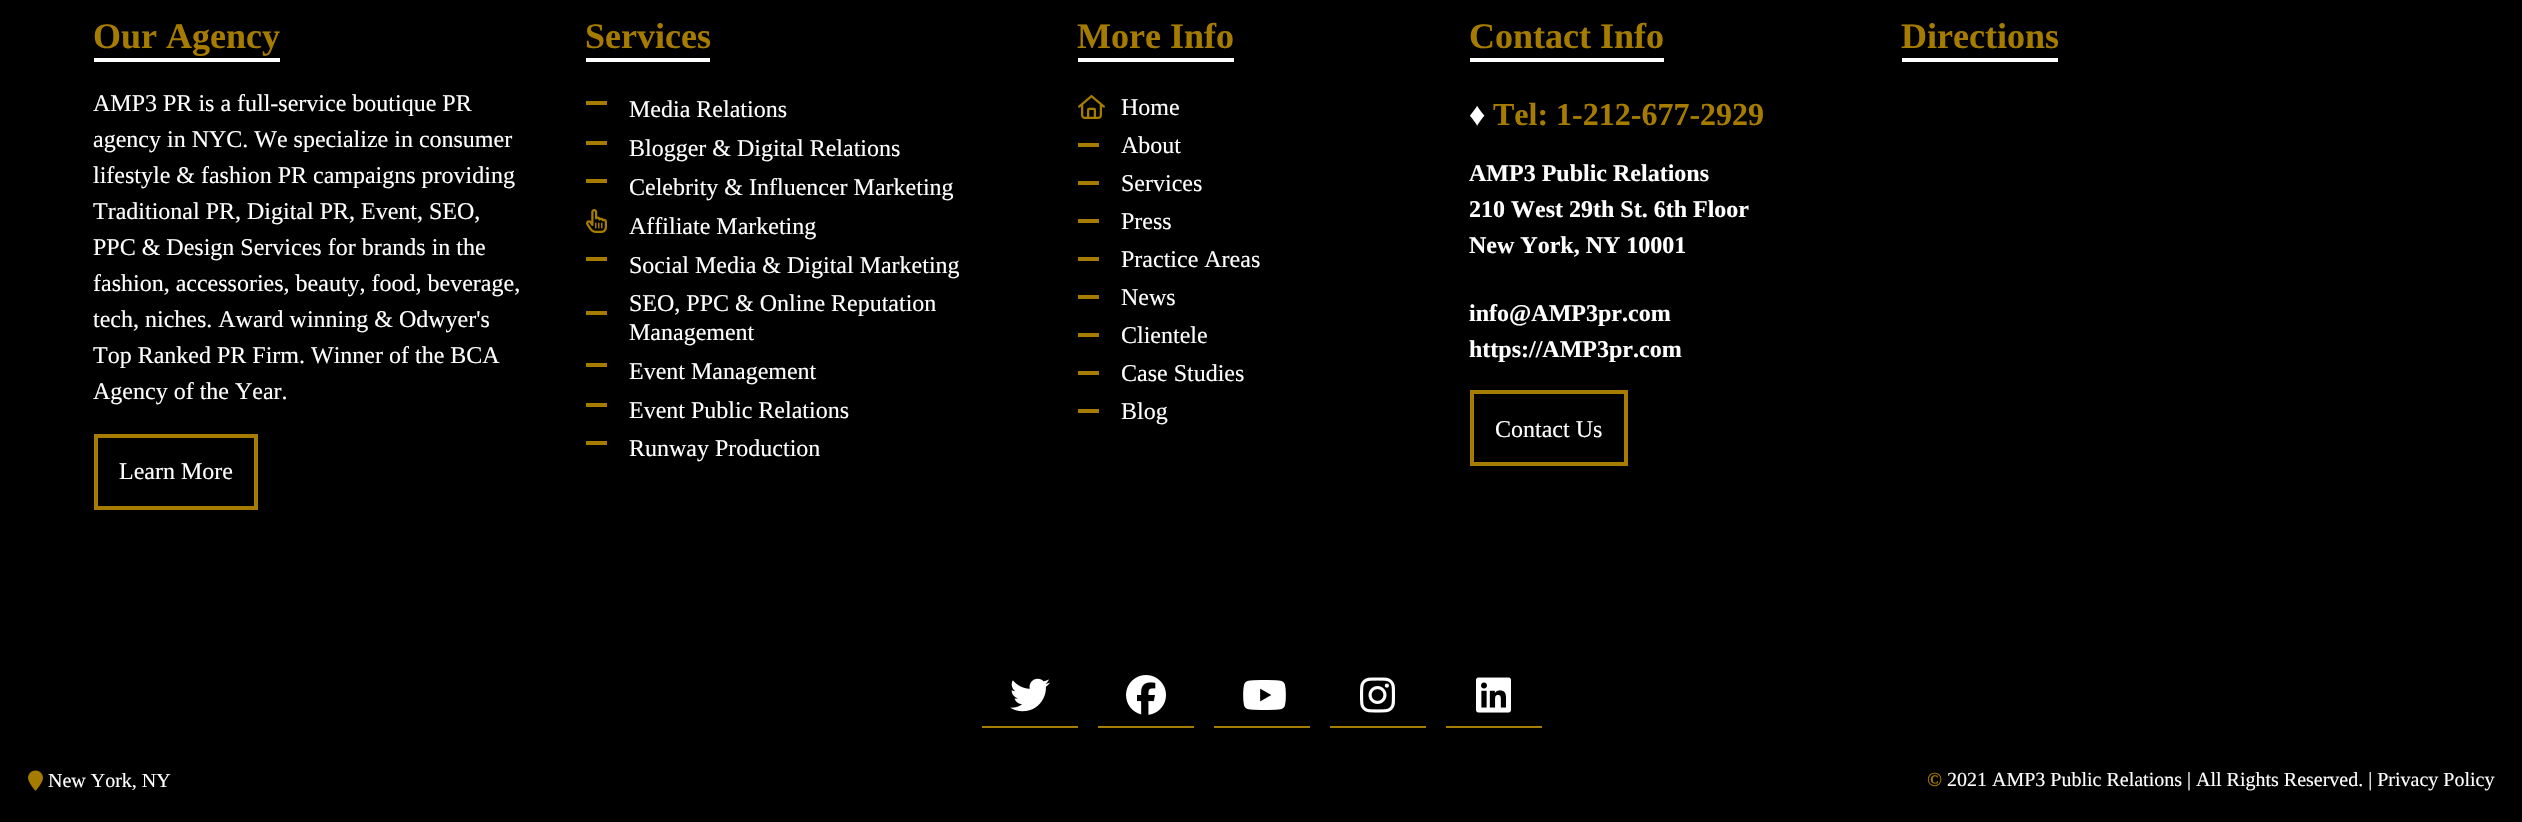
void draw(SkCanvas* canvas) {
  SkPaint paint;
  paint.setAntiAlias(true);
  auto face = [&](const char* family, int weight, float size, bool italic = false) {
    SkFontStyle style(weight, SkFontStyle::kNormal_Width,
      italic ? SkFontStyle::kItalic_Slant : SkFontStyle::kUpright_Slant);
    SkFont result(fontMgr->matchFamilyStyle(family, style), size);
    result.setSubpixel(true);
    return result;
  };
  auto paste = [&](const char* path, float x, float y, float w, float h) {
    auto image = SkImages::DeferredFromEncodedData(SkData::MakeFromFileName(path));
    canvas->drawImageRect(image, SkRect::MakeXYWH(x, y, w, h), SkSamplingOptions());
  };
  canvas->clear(0xff000000);
  paint.setColor(0xffffffff);
  canvas->drawRect(SkRect::MakeXYWH(94, 58, 186, 4), paint);
  paint.setStroke(true);
  paint.setStrokeWidth(4);
  paint.setColor(0xffa67c00);
  canvas->drawRect(SkRect::MakeXYWH(96, 436, 160, 72), paint);
  paint.setStroke(false);
  {
    const struct { float x, y, w, h; SkColor color; } items[] = {
      {586, 58, 124, 4, 0xffffffff},
      {586, 101, 21, 4, 0xffa67c00},
      {586, 141, 21, 4, 0xffa67c00},
      {586, 179, 21, 4, 0xffa67c00},
    };
    for (auto [x, y, w, h, color] : items) {
      paint.setColor(color);
      canvas->drawRect(SkRect::MakeXYWH(x, y, w, h), paint);
    }
  }
  paste("img/1.png", 586, 209, 21, 24);
  {
    const struct { float x, y, w, h; SkColor color; } items[] = {
      {586, 257, 21, 4, 0xffa67c00},
      {586, 311, 21, 4, 0xffa67c00},
      {586, 363, 21, 4, 0xffa67c00},
      {586, 403, 21, 4, 0xffa67c00},
      {586, 441, 21, 4, 0xffa67c00},
      {1078, 58, 156, 4, 0xffffffff},
    };
    for (auto [x, y, w, h, color] : items) {
      paint.setColor(color);
      canvas->drawRect(SkRect::MakeXYWH(x, y, w, h), paint);
    }
  }
  paste("img/2.png", 1078, 95, 27, 24);
  {
    const struct { float x, y, w, h; SkColor color; } items[] = {
      {1078, 143, 21, 4, 0xffa67c00},
      {1078, 181, 21, 4, 0xffa67c00},
      {1078, 219, 21, 4, 0xffa67c00},
      {1078, 257, 21, 4, 0xffa67c00},
      {1078, 295, 21, 4, 0xffa67c00},
      {1078, 333, 21, 4, 0xffa67c00},
      {1078, 371, 21, 4, 0xffa67c00},
      {1078, 409, 21, 4, 0xffa67c00},
      {1470, 58, 194, 4, 0xffffffff},
    };
    for (auto [x, y, w, h, color] : items) {
      paint.setColor(color);
      canvas->drawRect(SkRect::MakeXYWH(x, y, w, h), paint);
    }
  }
  paint.setStroke(true);
  paint.setColor(0xffa67c00);
  canvas->drawRect(SkRect::MakeXYWH(1472, 392, 154, 72), paint);
  paint.setStroke(false);
  paint.setColor(0xffffffff);
  canvas->drawRect(SkRect::MakeXYWH(1902, 58, 156, 4), paint);
  paint.setColor(0xffa67c00);
  canvas->drawRect(SkRect::MakeXYWH(982, 726, 96, 2), paint);
  paste("img/3.png", 1010, 678, 40, 34);
  canvas->drawRect(SkRect::MakeXYWH(1098, 726, 96, 2), paint);
  paste("img/4.png", 1126, 675, 40, 40);
  canvas->drawRect(SkRect::MakeXYWH(1214, 726, 96, 2), paint);
  paste("img/5.png", 1243, 680, 43, 30);
  canvas->drawRect(SkRect::MakeXYWH(1330, 726, 96, 2), paint);
  paste("img/6.png", 1360, 677, 35, 36);
  canvas->drawRect(SkRect::MakeXYWH(1446, 726, 96, 2), paint);
  paste("img/7.png", 1476, 677, 35, 36);
  paste("img/8.png", 28, 770, 15, 21);
  auto f0 = face("Liberation Serif", 700, 36);
  canvas->drawString("Our Agency", 93, 48, f0, paint);
  auto f1 = face("Liberation Serif", 400, 24);
  paint.setColor(0xffffffff);
  {
    const struct { const char* s; float x, y; } items[] = {
      {"AMP3 PR is a full-service boutique PR", 93, 111},
      {"agency in NYC. We specialize in consumer", 93, 147},
      {"lifestyle & fashion PR campaigns providing", 93, 183},
      {"Traditional PR, Digital PR, Event, SEO,", 93, 219},
      {"PPC & Design Services for brands in the", 93, 255},
      {"fashion, accessories, beauty, food, beverage,", 93, 291},
      {"tech, niches. Award winning & Odwyer's", 93, 327},
      {"Top Ranked PR Firm. Winner of the BCA", 93, 363},
      {"Agency of the Year.", 93, 399},
      {"Learn More", 119, 479},
    };
    for (auto [s, x, y] : items) {
      canvas->drawString(s, x, y, f1, paint);
    }
  }
  paint.setColor(0xffa67c00);
  canvas->drawString("Services", 585, 48, f0, paint);
  paint.setColor(0xffffffff);
  {
    const struct { const char* s; float x, y; } items[] = {
      {"Media Relations", 629, 117},
      {"Blogger & Digital Relations", 629, 156},
      {"Celebrity & Influencer Marketing", 629, 195},
      {"Affiliate Marketing", 629, 234},
      {"Social Media & Digital Marketing", 629, 273},
      {"SEO, PPC & Online Reputation", 629, 311},
      {"Management", 629, 340},
      {"Event Management", 629, 379},
      {"Event Public Relations", 629, 418},
      {"Runway Production", 629, 456},
    };
    for (auto [s, x, y] : items) {
      canvas->drawString(s, x, y, f1, paint);
    }
  }
  paint.setColor(0xffa67c00);
  canvas->drawString("More Info", 1077, 48, f0, paint);
  paint.setColor(0xffffffff);
  {
    const struct { const char* s; float x, y; } items[] = {
      {"Home", 1121, 115},
      {"About", 1121, 153},
      {"Services", 1121, 191},
      {"Press", 1121, 229},
      {"Practice Areas", 1121, 267},
      {"News", 1121, 305},
      {"Clientele", 1121, 343},
      {"Case Studies", 1121, 381},
      {"Blog", 1121, 419},
    };
    for (auto [s, x, y] : items) {
      canvas->drawString(s, x, y, f1, paint);
    }
  }
  paint.setColor(0xffa67c00);
  canvas->drawString("Contact Info", 1469, 48, f0, paint);
  auto f2 = face("Liberation Serif", 700, 32);
  paint.setColor(0xffffffff);
  canvas->drawString("♦", 1469, 125, f2, paint);
  paint.setColor(0xffa67c00);
  canvas->drawString("Tel: 1-212-677-2929", 1493, 125, f2, paint);
  auto f3 = face("Liberation Serif", 700, 24);
  paint.setColor(0xffffffff);
  {
    const struct { const char* s; float x, y; } items[] = {
      {"AMP3 Public Relations", 1469, 181},
      {"210 West 29th St. 6th Floor", 1469, 217},
      {"New York, NY 10001", 1469, 253},
      {"info@AMP3pr.com", 1469, 321},
      {"https://AMP3pr.com", 1469, 357},
    };
    for (auto [s, x, y] : items) {
      canvas->drawString(s, x, y, f3, paint);
    }
  }
  canvas->drawString("Contact Us", 1495, 437, f1, paint);
  paint.setColor(0xffa67c00);
  canvas->drawString("Directions", 1901, 48, f0, paint);
  auto f4 = face("Liberation Serif", 400, 20);
  paint.setColor(0xffffffff);
  canvas->drawString("New York, NY", 48, 787, f4, paint);
  auto f5 = face("Liberation Serif", 700, 20);
  paint.setColor(0xffa67c00);
  canvas->drawString("©", 1927, 786, f5, paint);
  paint.setColor(0xffffffff);
  canvas->drawString("2021 AMP3 Public Relations | All Rights Reserved. | Privacy Policy", 1947, 786, f4, paint);
}
